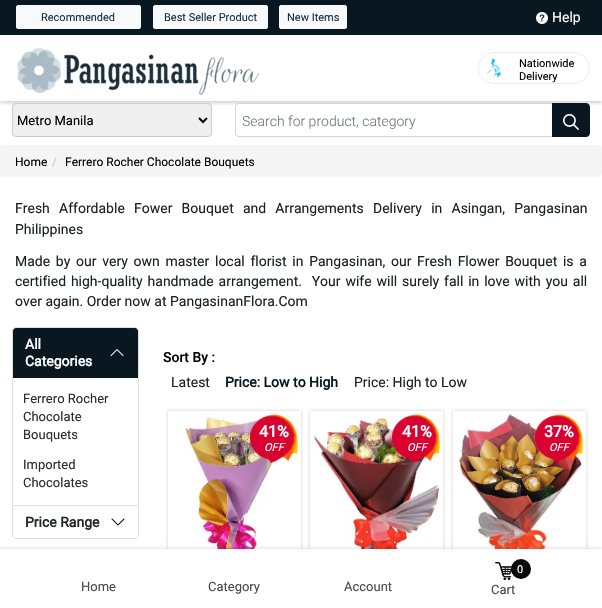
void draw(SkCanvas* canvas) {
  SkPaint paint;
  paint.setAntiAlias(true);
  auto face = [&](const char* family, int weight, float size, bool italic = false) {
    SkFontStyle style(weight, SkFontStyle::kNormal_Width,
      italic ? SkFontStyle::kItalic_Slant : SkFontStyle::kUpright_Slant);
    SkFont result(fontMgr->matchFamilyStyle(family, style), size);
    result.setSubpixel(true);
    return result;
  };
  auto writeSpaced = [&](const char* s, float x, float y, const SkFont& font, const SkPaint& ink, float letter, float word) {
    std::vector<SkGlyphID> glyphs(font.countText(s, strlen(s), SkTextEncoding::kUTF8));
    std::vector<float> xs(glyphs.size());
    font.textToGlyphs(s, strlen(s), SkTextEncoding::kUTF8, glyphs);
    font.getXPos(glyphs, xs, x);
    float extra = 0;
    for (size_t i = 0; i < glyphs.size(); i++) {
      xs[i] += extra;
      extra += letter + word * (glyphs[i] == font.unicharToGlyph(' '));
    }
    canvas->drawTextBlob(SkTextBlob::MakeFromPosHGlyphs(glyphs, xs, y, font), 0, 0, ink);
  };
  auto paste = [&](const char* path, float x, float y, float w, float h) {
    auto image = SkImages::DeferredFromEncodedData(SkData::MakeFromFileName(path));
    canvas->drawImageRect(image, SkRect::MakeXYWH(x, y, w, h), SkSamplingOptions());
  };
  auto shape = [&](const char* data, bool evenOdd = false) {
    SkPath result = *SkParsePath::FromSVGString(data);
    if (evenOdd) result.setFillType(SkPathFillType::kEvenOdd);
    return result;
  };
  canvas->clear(0xffffffff);
  canvas->save();
  canvas->clipRect(SkRect::MakeXYWH(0, 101, 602, 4));
  paint.setColor(0x40000000);
  paint.setMaskFilter(SkMaskFilter::MakeBlur(kNormal_SkBlurStyle, 2.5f));
  canvas->drawRect(SkRect::MakeXYWH(0, 1, 602, 101), paint);
  paint.setMaskFilter(nullptr);
  canvas->restore();
  paint.setColor(0xff091720);
  canvas->drawRect(SkRect::MakeXYWH(0, 0, 602, 35), paint);
  paint.setColor(0xfff8f9fa);
  canvas->drawRoundRect(SkRect::MakeXYWH(16.5f, 5.5f, 124, 23), 1.5f, 1.5f, paint);
  paint.setStroke(true);
  paint.setStrokeWidth(1);
  canvas->drawRoundRect(SkRect::MakeXYWH(16.5f, 5.5f, 124, 23), 1.5f, 1.5f, paint);
  paint.setStroke(false);
  canvas->drawRoundRect(SkRect::MakeXYWH(153.5f, 5.5f, 114, 23), 1.5f, 1.5f, paint);
  paint.setStroke(true);
  canvas->drawRoundRect(SkRect::MakeXYWH(153.5f, 5.5f, 114, 23), 1.5f, 1.5f, paint);
  paint.setStroke(false);
  canvas->drawRoundRect(SkRect::MakeXYWH(279.5f, 5.5f, 67, 23), 1.5f, 1.5f, paint);
  paint.setStroke(true);
  canvas->drawRoundRect(SkRect::MakeXYWH(279.5f, 5.5f, 67, 23), 1.5f, 1.5f, paint);
  paste("img/1.png", 536, 12, 12, 12);
  paste("img/2.png", 17, 47, 243, 48);
  paint.setColor(0xffededed);
  canvas->drawRoundRect(SkRect::MakeXYWH(478.5f, 52.5f, 111, 31), 15.5f, 15.5f, paint);
  paste("img/3.png", 487, 58, 14, 19);
  paint.setStroke(false);
  paint.setColor(0xffefefef);
  canvas->drawRoundRect(SkRect::MakeXYWH(12.5f, 103.5f, 199, 33), 3.5f, 3.5f, paint);
  paint.setStroke(true);
  paint.setColor(0xffcccccc);
  canvas->drawRoundRect(SkRect::MakeXYWH(12.5f, 103.5f, 199, 33), 3.5f, 3.5f, paint);
  paint.setStrokeWidth(2);
  paint.setColor(0xff000000);
  canvas->drawPath(shape("M199 118L203 122L207 118"), paint);
  paint.setStroke(false);
  paint.setColor(0xffffffff);
  canvas->drawRoundRect(SkRect::MakeXYWH(235.5f, 103.5f, 354, 33), 3.5f, 3.5f, paint);
  paint.setStroke(true);
  paint.setStrokeWidth(1);
  paint.setColor(0xffced4da);
  canvas->drawRoundRect(SkRect::MakeXYWH(235.5f, 103.5f, 354, 33), 3.5f, 3.5f, paint);
  paint.setStroke(false);
  paint.setColor(0xff091720);
  canvas->drawPath(shape("M552 103H586C588 103 590 105 590 107V133C590 135 588 137 586 137H552Z"), paint);
  paste("img/4.png", 563, 114, 16, 16);
  paint.setColor(0xfff5f5f5);
  canvas->drawRoundRect(SkRect::MakeXYWH(0, 145, 602, 32), 4, 4, paint);
  paint.setStroke(true);
  paint.setColor(0xffdfdfdf);
  canvas->drawPath(shape("M16 327.5H135C137 327.5 138.5 329 138.5 331V505.5H12.5V331C12.5 329 14 327.5 16 327.5Z"), paint);
  paint.setStroke(false);
  paint.setColor(0xff091720);
  canvas->drawPath(shape("M16 328H135C136.5 328 138 329.5 138 331V378H13V331C13 329.5 14.5 328 16 328Z"), paint);
  paint.setColor(0xff08141c);
  canvas->drawRect(SkRect::MakeXYWH(13, 377, 125, 1), paint);
  paste("img/5.png", 110, 349, 14, 7);
  paint.setColor(0xffdfdfdf);
  canvas->drawPath(shape("M12 506H139V535C139 537 137 539 135 539H16C14 539 12 537 12 535ZM13 506H138V535C138 537 137 538 135 538H16C14 538 13 537 13 535Z", true), paint);
  paint.setColor(0xffffffff);
  canvas->drawPath(shape("M13 506H138V535C138 536.5 136.5 538 135 538H16C14.5 538 13 536.5 13 535Z"), paint);
  paste("img/6.png", 111, 518, 14, 8);
  canvas->save();
  canvas->clipPath(shape("M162 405H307V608H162ZM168 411H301V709H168Z", true), true);
  paint.setColor(0x33000000);
  paint.setMaskFilter(SkMaskFilter::MakeBlur(kNormal_SkBlurStyle, 1.5f));
  canvas->drawRect(SkRect::MakeXYWH(168, 411, 133, 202), paint);
  paint.setMaskFilter(nullptr);
  canvas->restore();
  paste("img/7.png", 185, 415, 105, 134);
  paste("img/8.png", 250, 414, 48, 50);
  canvas->save();
  canvas->clipPath(shape("M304 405H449V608H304ZM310 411H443V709H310Z", true), true);
  paint.setMaskFilter(SkMaskFilter::MakeBlur(kNormal_SkBlurStyle, 1.5f));
  canvas->drawRect(SkRect::MakeXYWH(310, 411, 133, 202), paint);
  paint.setMaskFilter(nullptr);
  canvas->restore();
  paste("img/9.png", 313, 417, 129, 132);
  paste("img/10.png", 392, 414, 48, 50);
  canvas->save();
  canvas->clipPath(shape("M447 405H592V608H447ZM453 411H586V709H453Z", true), true);
  paint.setMaskFilter(SkMaskFilter::MakeBlur(kNormal_SkBlurStyle, 1.5f));
  canvas->drawRect(SkRect::MakeXYWH(453, 411, 133, 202), paint);
  paint.setMaskFilter(nullptr);
  canvas->restore();
  paste("img/11.png", 458, 414, 124, 135);
  paste("img/12.png", 535, 414, 48, 49);
  paint.setColor(0x40000000);
  paint.setMaskFilter(SkMaskFilter::MakeBlur(kNormal_SkBlurStyle, 2.5f));
  canvas->drawRect(SkRect::MakeXYWH(0, 550, 602, 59), paint);
  paint.setMaskFilter(nullptr);
  paint.setColor(0xffffffff);
  canvas->drawRect(SkRect::MakeXYWH(0, 549, 602, 59), paint);
  paste("img/13.png", 495, 562, 17, 18);
  paint.setColor(0xff080808);
  canvas->drawCircle(521, 569, 10, paint);
  auto f0 = face("Roboto", 400, 11);
  paint.setColor(0xff172d3a);
  {
    const struct { const char* s; float x, y; } items[] = {
      {"Recommended", 41, 21},
      {"Best Seller Product", 164, 21},
      {"New Items", 287, 21},
    };
    for (auto [s, x, y] : items) {
      canvas->drawString(s, x, y, f0, paint);
    }
  }
  auto f1 = face("Roboto", 400, 14);
  paint.setColor(0xffffffff);
  canvas->drawString("Help", 552, 22, f1, paint);
  paint.setColor(0xff000000);
  canvas->drawString("Nationwide", 519, 67, f0, paint);
  canvas->drawString("Delivery", 519, 80, f0, paint);
  auto f2 = face("Roboto", 400, 13);
  canvas->drawString("Metro Manila", 17, 125, f2, paint);
  auto f3 = face("Roboto", 300, 14);
  paint.setColor(0xff6c757d);
  canvas->drawString("Search for product, category", 242, 126, f3, paint);
  auto f4 = face("Roboto", 400, 12);
  paint.setColor(0xff000000);
  canvas->drawString("Home", 15, 166, f4, paint);
  paint.setColor(0xffcccccc);
  canvas->drawString("/", 52, 166, f4, paint);
  paint.setColor(0xff000000);
  canvas->drawString("Ferrero Rocher Chocolate Bouquets", 65, 166, f4, paint);
  paint.setColor(0xff1b1e24);
  writeSpaced("Fresh Affordable Fower Bouquet and Arrangements Delivery in Asingan, Pangasinan", 15, 213, f1, paint, 0, 5.75f);
  canvas->drawString("Philippines", 15, 234, f1, paint);
  writeSpaced("Made by our very own master local florist in Pangasinan, our Fresh Flower Bouquet is a", 15, 266, f1, paint, 0, 2.25f);
  writeSpaced("certified high-quality handmade arrangement.  Your wife will surely fall in love with you all", 15, 286, f1, paint, 0, 1.4f);
  canvas->drawString("over again. Order now at PangasinanFlora.Com", 15, 306, f1, paint);
  auto f5 = face("Roboto", 700, 14);
  paint.setColor(0xffffffff);
  canvas->drawString("All", 25, 349, f5, paint);
  canvas->drawString("Categories", 25, 366, f5, paint);
  paint.setColor(0xff2b2b2b);
  {
    const struct { const char* s; float x, y; } items[] = {
      {"Ferrero Rocher", 23, 403},
      {"Chocolate", 23, 421},
      {"Bouquets", 23, 439},
      {"Imported", 23, 469},
      {"Chocolates", 23, 487},
    };
    for (auto [s, x, y] : items) {
      canvas->drawString(s, x, y, f2, paint);
    }
  }
  paint.setColor(0xff212529);
  canvas->drawString("Price Range", 25, 527, f5, paint);
  auto f6 = face("Roboto", 500, 14);
  paint.setColor(0xff000000);
  canvas->drawString("Sort By :", 163, 362, f6, paint);
  paint.setColor(0xff1b1e24);
  canvas->drawString("Latest", 171, 387, f1, paint);
  paint.setColor(0xff091720);
  canvas->drawString("Price: Low to High", 225, 387, f5, paint);
  paint.setColor(0xff1b1e24);
  canvas->drawString("Price: High to Low", 354, 387, f1, paint);
  auto f7 = face("Roboto", 700, 16);
  paint.setColor(0xffffffff);
  canvas->drawString("41%", 259, 437, f7, paint);
  auto f8 = face("Roboto", 400, 11, true);
  canvas->drawString("OFF", 264, 451, f8, paint);
  canvas->drawString("41%", 402, 437, f7, paint);
  canvas->drawString("OFF", 407, 451, f8, paint);
  canvas->drawString("37%", 544, 437, f7, paint);
  canvas->drawString("OFF", 549, 451, f8, paint);
  paint.setColor(0xff494949);
  {
    const struct { const char* s; float x, y; } items[] = {
      {"Home", 81, 591},
      {"Category", 208, 591},
      {"Account", 344, 591},
    };
    for (auto [s, x, y] : items) {
      canvas->drawString(s, x, y, f2, paint);
    }
  }
  paint.setColor(0xffffffff);
  canvas->drawString("0", 517, 573, f0, paint);
  paint.setColor(0xff494949);
  canvas->drawString("Cart", 491, 594, f2, paint);
}
